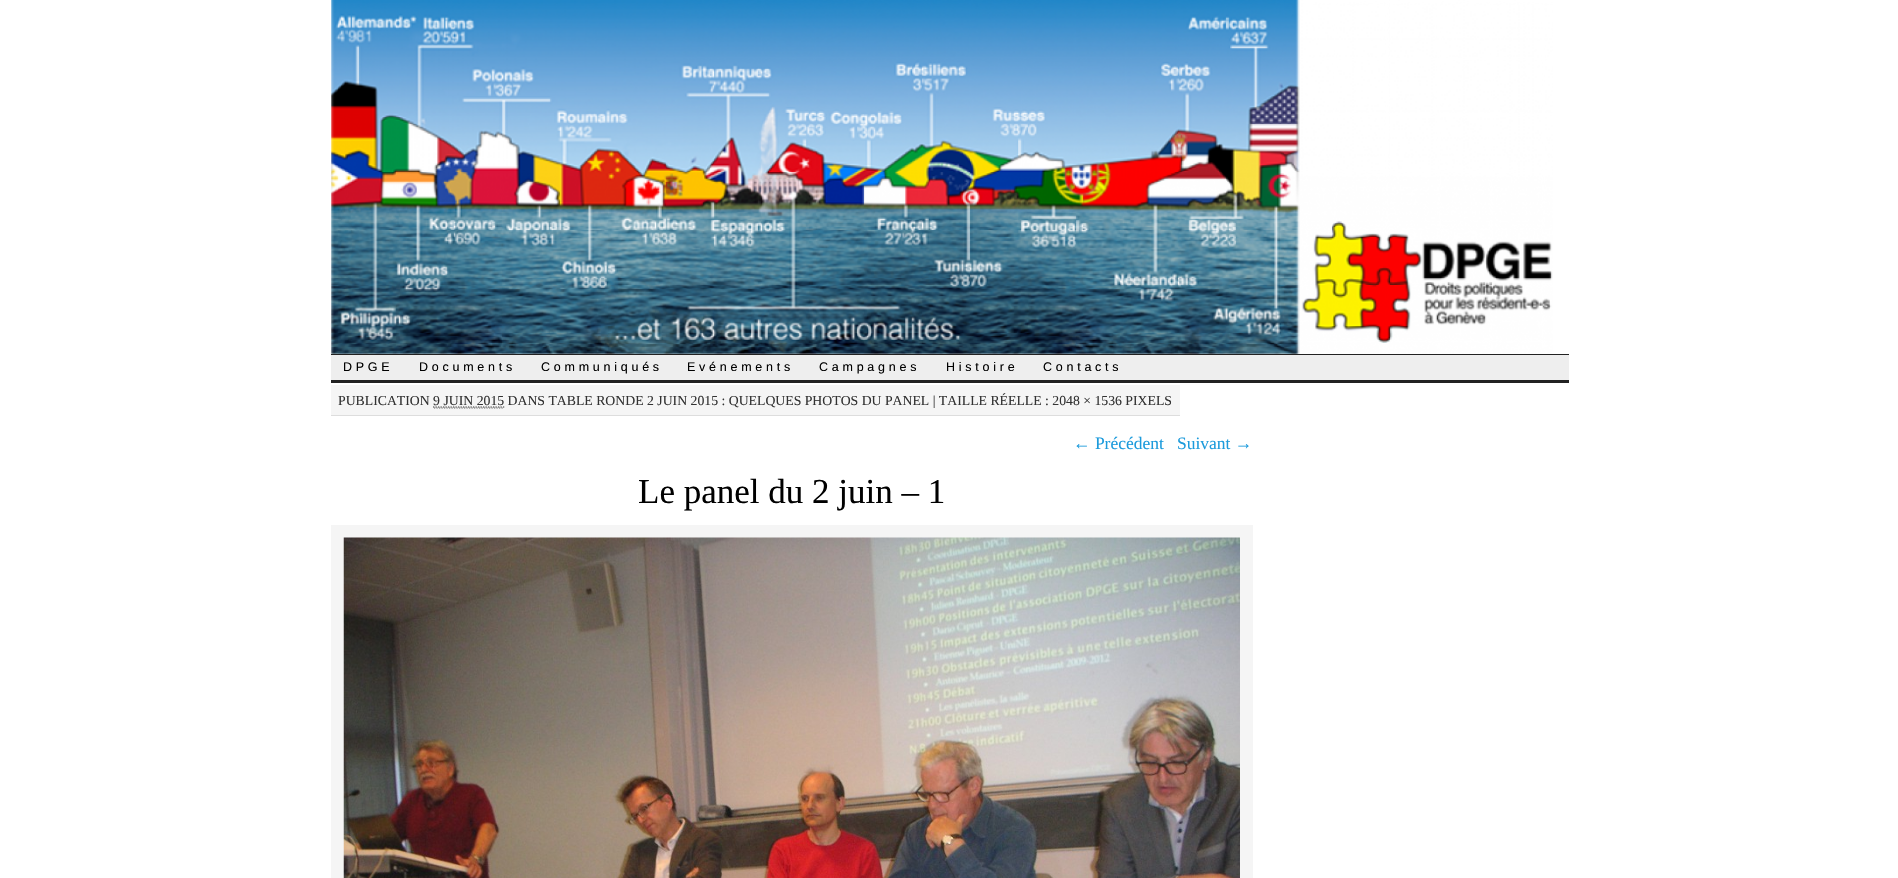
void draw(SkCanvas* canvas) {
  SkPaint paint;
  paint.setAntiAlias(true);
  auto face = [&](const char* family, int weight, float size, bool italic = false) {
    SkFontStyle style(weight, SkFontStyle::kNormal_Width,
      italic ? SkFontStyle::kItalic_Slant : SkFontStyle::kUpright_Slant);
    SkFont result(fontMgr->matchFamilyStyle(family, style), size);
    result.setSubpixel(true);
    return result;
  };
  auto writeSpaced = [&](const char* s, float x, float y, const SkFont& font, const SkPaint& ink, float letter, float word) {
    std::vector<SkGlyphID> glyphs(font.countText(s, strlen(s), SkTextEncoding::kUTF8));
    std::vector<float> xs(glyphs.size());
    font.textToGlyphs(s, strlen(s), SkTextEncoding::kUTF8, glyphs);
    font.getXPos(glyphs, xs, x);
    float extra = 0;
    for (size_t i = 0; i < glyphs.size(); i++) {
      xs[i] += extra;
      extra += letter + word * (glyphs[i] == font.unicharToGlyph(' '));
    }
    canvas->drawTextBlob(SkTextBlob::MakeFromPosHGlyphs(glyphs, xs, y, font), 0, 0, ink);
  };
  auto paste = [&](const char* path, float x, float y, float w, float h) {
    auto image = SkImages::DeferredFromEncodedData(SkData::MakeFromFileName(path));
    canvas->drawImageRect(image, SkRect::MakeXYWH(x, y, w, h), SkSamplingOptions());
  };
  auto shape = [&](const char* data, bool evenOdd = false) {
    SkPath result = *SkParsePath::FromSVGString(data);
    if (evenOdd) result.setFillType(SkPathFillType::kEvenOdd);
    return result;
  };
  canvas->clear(0xffffffff);
  paste("img/1.png", 331, 0, 1222, 354);
  {
    const struct { float x, y, w, h; SkColor color; } items[] = {
      {331, 355, 1238, 25, 0xffeeeeee},
      {331, 354, 1238, 1, 0xff222222},
      {331, 380, 1238, 3, 0xff222222},
      {331, 385, 849, 30, 0xfff5f5f5},
      {331, 415, 849, 1, 0xffdddddd},
      {331, 525, 922, 353, 0xfff5f5f5},
    };
    for (auto [x, y, w, h, color] : items) {
      paint.setColor(color);
      canvas->drawRect(SkRect::MakeXYWH(x, y, w, h), paint);
    }
  }
  paste("img/2.png", 343, 537, 897, 341);
  auto f0 = face("Liberation Sans", 400, 12.5f);
  paint.setColor(0xff000000);
  {
    const struct { const char* s; float x, y; } items[] = {
      {"DPGE", 343, 371},
      {"Documents", 419, 371},
      {"Communiqués", 541, 371},
      {"Evénements", 687, 371},
      {"Campagnes", 819, 371},
      {"Histoire", 946, 371},
      {"Contacts", 1043, 371},
    };
    for (auto [s, x, y] : items) {
      writeSpaced(s, x, y, f0, paint, 3.75f, 0);
    }
  }
  auto f1 = face("Liberation Serif", 400, 13.75f);
  paint.setColor(0xff333333);
  canvas->drawString("PUBLICATION 9 JUIN 2015 DANS TABLE RONDE 2 JUIN 2015 : QUELQUES PHOTOS DU PANEL | TAILLE RÉELLE : 2048 × 1536 PIXELS", 338, 405, f1, paint);
  paint.setStroke(true);
  paint.setStrokeWidth(1.2f);
  paint.setColor(0xff666666);
  paint.setPathEffect(SkDashPathEffect::Make({{1.25f, 1.25f}}, 0));
  canvas->drawPath(shape("M434 408H504"), paint);
  paint.setPathEffect(nullptr);
  paint.setColor(0xff333333);
  paint.setPathEffect(SkDashPathEffect::Make({{1.25f, 1.25f}}, 0));
  canvas->drawPath(shape("M433 407H504.5"), paint);
  paint.setPathEffect(nullptr);
  auto f2 = face("Liberation Serif", 400, 17.5f);
  paint.setStroke(false);
  paint.setColor(0xff1c9bdc);
  canvas->drawString("← Précédent", 1073, 449, f2, paint);
  canvas->drawString("Suivant →", 1177, 449, f2, paint);
  auto f3 = face("Liberation Serif", 400, 35);
  paint.setColor(0xff000000);
  canvas->drawString("Le panel du 2 juin – 1", 638, 503, f3, paint);
}
